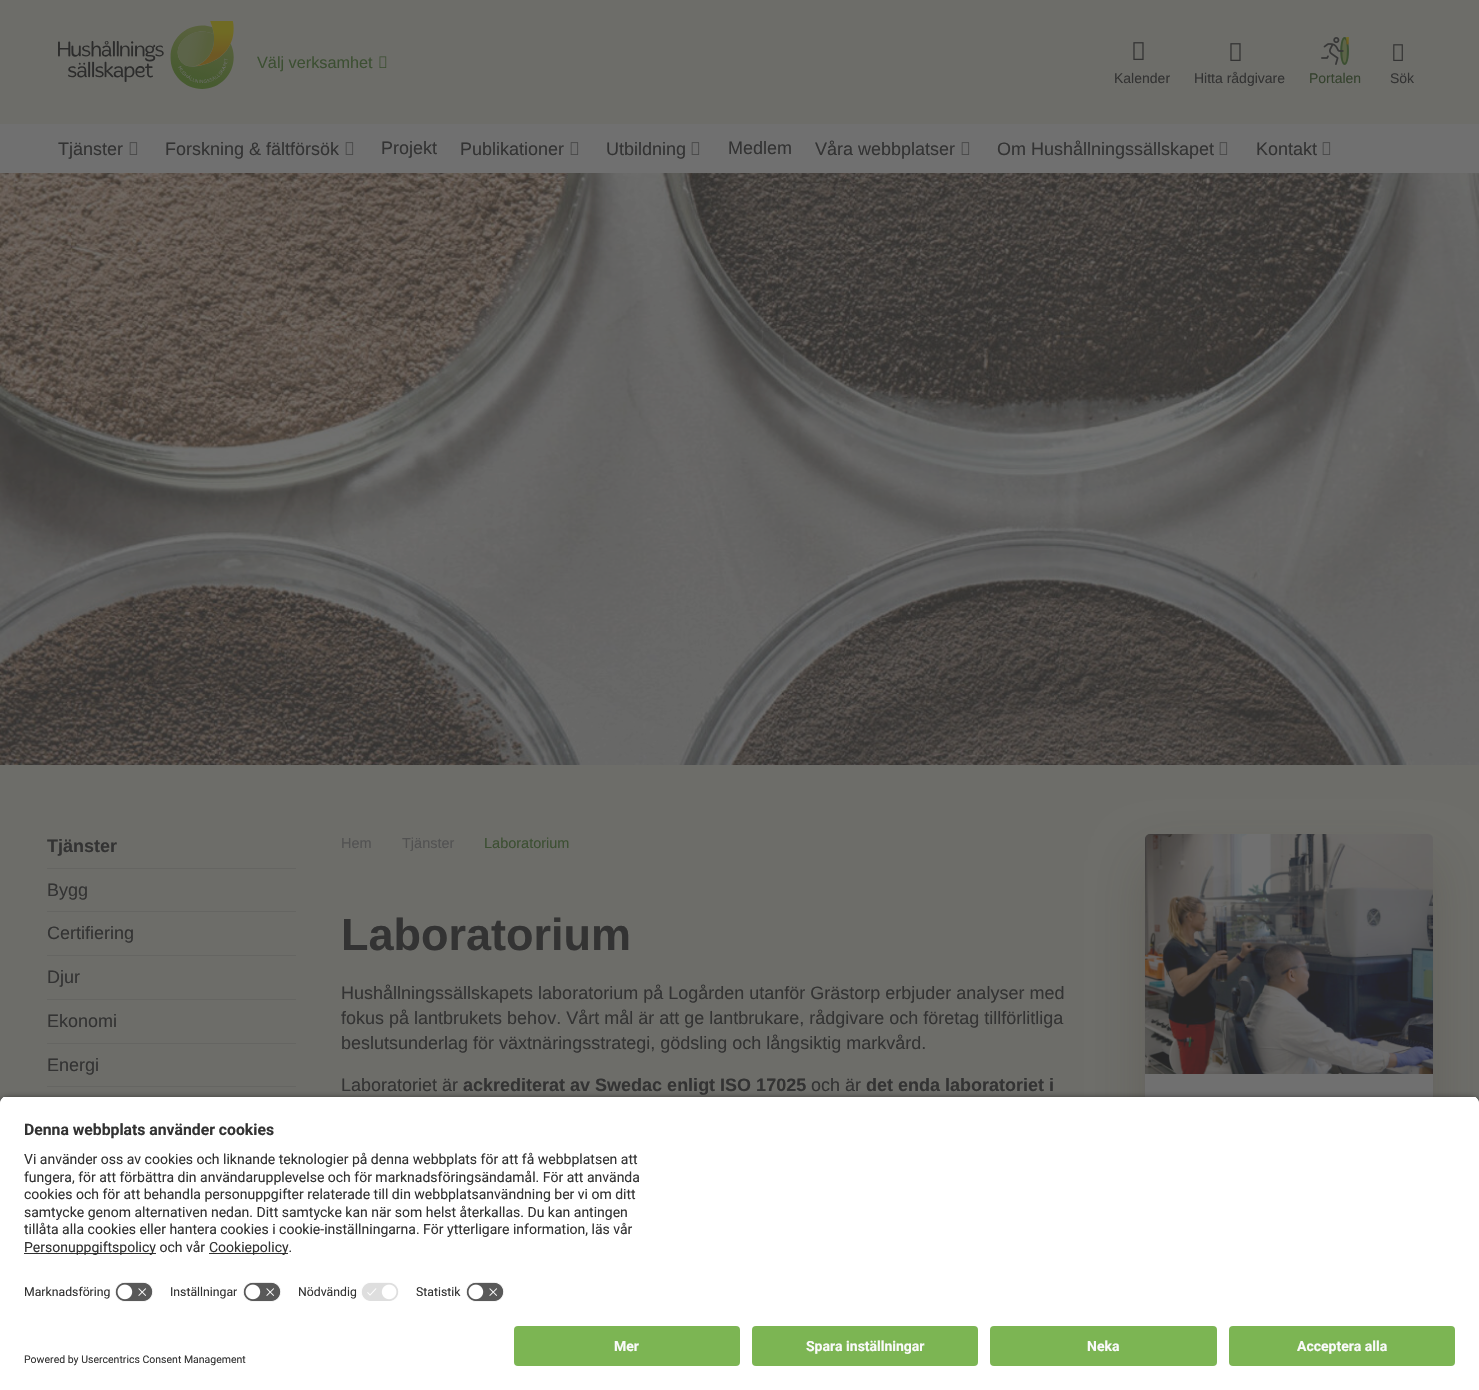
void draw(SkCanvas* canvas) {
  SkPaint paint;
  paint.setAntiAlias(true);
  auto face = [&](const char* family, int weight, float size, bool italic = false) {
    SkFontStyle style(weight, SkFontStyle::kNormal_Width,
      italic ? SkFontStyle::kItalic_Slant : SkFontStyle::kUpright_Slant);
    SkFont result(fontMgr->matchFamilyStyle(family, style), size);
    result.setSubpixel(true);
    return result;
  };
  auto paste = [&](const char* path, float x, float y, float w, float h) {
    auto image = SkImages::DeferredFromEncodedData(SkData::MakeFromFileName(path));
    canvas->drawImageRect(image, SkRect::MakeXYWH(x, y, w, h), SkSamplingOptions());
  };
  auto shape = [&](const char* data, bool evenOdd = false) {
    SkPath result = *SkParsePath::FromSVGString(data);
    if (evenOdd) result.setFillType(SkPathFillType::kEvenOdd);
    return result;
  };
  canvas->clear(0xff6d6d69);
  paint.setColor(0xff707070);
  canvas->drawRect(SkRect::MakeXYWH(0, 124, 1479, 49), paint);
  paste("img/1.png", 58, 21, 176, 68);
  paste("img/2.png", 379, 56, 8, 12);
  paste("img/3.png", 1133, 42, 11, 18);
  paste("img/3.png", 1230, 43, 11, 18);
  paste("img/4.png", 1321, 37, 28, 28);
  paste("img/5.png", 1393, 44, 10, 17);
  paste("img/6.png", 129, 142, 9, 13);
  paste("img/6.png", 345, 142, 9, 13);
  paste("img/6.png", 570, 142, 9, 13);
  paste("img/6.png", 691, 142, 9, 13);
  paste("img/6.png", 961, 142, 9, 13);
  paste("img/6.png", 1219, 142, 9, 13);
  paste("img/6.png", 1322, 142, 9, 13);
  paste("img/7.png", 0, 173, 1479, 592);
  {
    const struct { float x, y, w, h; SkColor color; } items[] = {
      {47, 868, 249, 1, 0xff656562},
      {47, 911, 249, 1, 0xff656562},
      {47, 955, 249, 1, 0xff656562},
      {47, 999, 249, 1, 0xff656562},
      {47, 1043, 249, 1, 0xff656562},
      {47, 1086, 249, 1, 0xff656562},
    };
    for (auto [x, y, w, h, color] : items) {
      paint.setColor(color);
      canvas->drawRect(SkRect::MakeXYWH(x, y, w, h), paint);
    }
  }
  paint.setColor(0x403e362a);
  paint.setMaskFilter(SkMaskFilter::MakeBlur(kNormal_SkBlurStyle, 25.5f));
  canvas->drawRoundRect(SkRect::MakeXYWH(1145, 860, 288, 415), 5, 5, paint);
  paint.setMaskFilter(nullptr);
  paste("img/8.png", 1145, 834, 288, 240);
  paint.setColor(0xff707070);
  canvas->drawRect(SkRect::MakeXYWH(1145, 1074, 288, 23), paint);
  paint.setColor(0xcc000000);
  paint.setMaskFilter(SkMaskFilter::MakeBlur(kNormal_SkBlurStyle, 3.5f));
  canvas->drawRoundRect(SkRect::MakeXYWH(0, 1099, 1479, 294), 8, 8, paint);
  paint.setMaskFilter(nullptr);
  canvas->save();
  canvas->clipPath(shape("M8 1096H1471C1475.5 1096 1479 1099.5 1479 1104V1318H0V1104C0 1099.5 3.5 1096 8 1096Z"), true);
  paint.setColor(0xffffffff);
  canvas->drawRect(SkRect::MakeXYWH(0, 1097, 1479, 221), paint);
  canvas->drawRect(SkRect::MakeXYWH(0, 1097, 1479, 181), paint);
  canvas->restore();
  paint.setColor(0xff303030);
  canvas->drawRect(SkRect::MakeXYWH(24, 1253, 132, 1), paint);
  canvas->drawRect(SkRect::MakeXYWH(209, 1253, 79, 1), paint);
  paste("img/9.png", 115, 1282, 38, 20);
  paste("img/9.png", 243, 1282, 38, 20);
  paste("img/10.png", 361, 1282, 38, 19);
  paste("img/9.png", 466, 1282, 38, 20);
  paint.setColor(0xffffffff);
  canvas->drawRect(SkRect::MakeXYWH(0, 1318, 1479, 72), paint);
  paint.setColor(0xff7cb553);
  canvas->drawRoundRect(SkRect::MakeXYWH(514, 1326, 226, 40), 4, 4, paint);
  canvas->drawRoundRect(SkRect::MakeXYWH(752, 1326, 226, 40), 4, 4, paint);
  canvas->drawRoundRect(SkRect::MakeXYWH(990, 1326, 227, 40), 4, 4, paint);
  canvas->drawRoundRect(SkRect::MakeXYWH(1229, 1326, 226, 40), 4, 4, paint);
  auto f0 = face("Liberation Sans", 400, 16.25f);
  paint.setColor(0xff3c4f32);
  canvas->drawString("Välj verksamhet", 257, 68, f0, paint);
  auto f1 = face("Liberation Sans", 400, 14);
  paint.setColor(0xff333333);
  canvas->drawString("Kalender", 1114, 83, f1, paint);
  canvas->drawString("Hitta rådgivare", 1194, 83, f1, paint);
  paint.setColor(0xff35422e);
  canvas->drawString("Portalen", 1309, 83, f1, paint);
  paint.setColor(0xff333333);
  canvas->drawString("Sök", 1390, 83, f1, paint);
  auto f2 = face("Liberation Sans", 400, 18);
  {
    const struct { const char* s; float x, y; } items[] = {
      {"Tjänster", 58, 155},
      {"Forskning & fältförsök", 165, 155},
      {"Projekt", 381, 154},
      {"Publikationer", 460, 155},
      {"Utbildning", 606, 155},
      {"Medlem", 728, 154},
      {"Våra webbplatser", 815, 155},
      {"Om Hushållningssällskapet", 997, 155},
      {"Kontakt", 1256, 155},
    };
    for (auto [s, x, y] : items) {
      canvas->drawString(s, x, y, f2, paint);
    }
  }
  auto f3 = face("Liberation Sans", 700, 18);
  canvas->drawString("Tjänster", 47, 852, f3, paint);
  {
    const struct { const char* s; float x, y; } items[] = {
      {"Bygg", 47, 896},
      {"Certifiering", 47, 939},
      {"Djur", 47, 983},
      {"Ekonomi", 47, 1027},
      {"Energi", 47, 1071},
    };
    for (auto [s, x, y] : items) {
      canvas->drawString(s, x, y, f2, paint);
    }
  }
  auto f4 = face("Liberation Sans", 400, 14.5f);
  paint.setColor(0xff525252);
  canvas->drawString("Hem", 341, 848, f4, paint);
  canvas->drawString("Tjänster", 402, 848, f4, paint);
  paint.setColor(0xff3c4f32);
  canvas->drawString("Laboratorium", 484, 848, f4, paint);
  auto f5 = face("Liberation Sans", 700, 45);
  paint.setColor(0xff333333);
  canvas->drawString("Laboratorium", 341, 950, f5, paint);
  {
    const struct { const char* s; float x, y; } items[] = {
      {"Hushållningssällskapets laboratorium på Logården utanför Grästorp erbjuder analyser med", 341, 999},
      {"fokus på lantbrukets behov. Vårt mål är att ge lantbrukare, rådgivare och företag tillförlitliga", 341, 1024},
      {"beslutsunderlag för växtnäringsstrategi, gödsling och långsiktig markvård.", 341, 1049},
      {"Laboratoriet är", 341, 1091},
    };
    for (auto [s, x, y] : items) {
      canvas->drawString(s, x, y, f2, paint);
    }
  }
  canvas->drawString("ackrediterat av Swedac enligt ISO 17025", 463, 1091, f3, paint);
  canvas->drawString("och är", 811, 1091, f2, paint);
  canvas->drawString("det enda laboratoriet i", 866, 1091, f3, paint);
  auto f6 = face("Roboto", 700, 15.75f);
  canvas->drawString("Denna webbplats använder cookies", 24, 1135, f6, paint);
  auto f7 = face("Roboto", 400, 14);
  {
    const struct { const char* s; float x, y; } items[] = {
      {"Vi använder oss av cookies och liknande teknologier på denna webbplats för att få webbplatsen att", 24, 1164},
      {"fungera, för att förbättra din användarupplevelse och för marknadsföringsändamål. För att använda", 24, 1182},
      {"cookies och för att behandla personuppgifter relaterade till din webbplatsanvändning ber vi om ditt", 24, 1199},
      {"samtycke genom alternativen nedan. Ditt samtycke kan när som helst återkallas. Du kan antingen", 24, 1217},
      {"tillåta alla cookies eller hantera cookies i cookie-inställningarna. För ytterligare information, läs vår", 24, 1234},
      {"Personuppgiftspolicy och vår", 24, 1252},
      {"Cookiepolicy.", 209, 1252},
    };
    for (auto [s, x, y] : items) {
      canvas->drawString(s, x, y, f7, paint);
    }
  }
  auto f8 = face("Roboto", 400, 12.25f);
  {
    const struct { const char* s; float x, y; } items[] = {
      {"Marknadsföring", 24, 1296},
      {"Inställningar", 170, 1296},
      {"Nödvändig", 298, 1296},
      {"Statistik", 416, 1296},
    };
    for (auto [s, x, y] : items) {
      canvas->drawString(s, x, y, f8, paint);
    }
  }
  auto f9 = face("Roboto", 700, 14);
  paint.setColor(0xfffafafa);
  {
    const struct { const char* s; float x, y; } items[] = {
      {"Mer", 614, 1351},
      {"Spara inställningar", 806, 1351},
      {"Neka", 1087, 1351},
      {"Acceptera alla", 1297, 1351},
    };
    for (auto [s, x, y] : items) {
      canvas->drawString(s, x, y, f9, paint);
    }
  }
  auto f10 = face("Roboto", 400, 10.5f);
  paint.setColor(0xff333333);
  canvas->drawString("Powered by Usercentrics Consent Management", 24, 1363, f10, paint);
}
